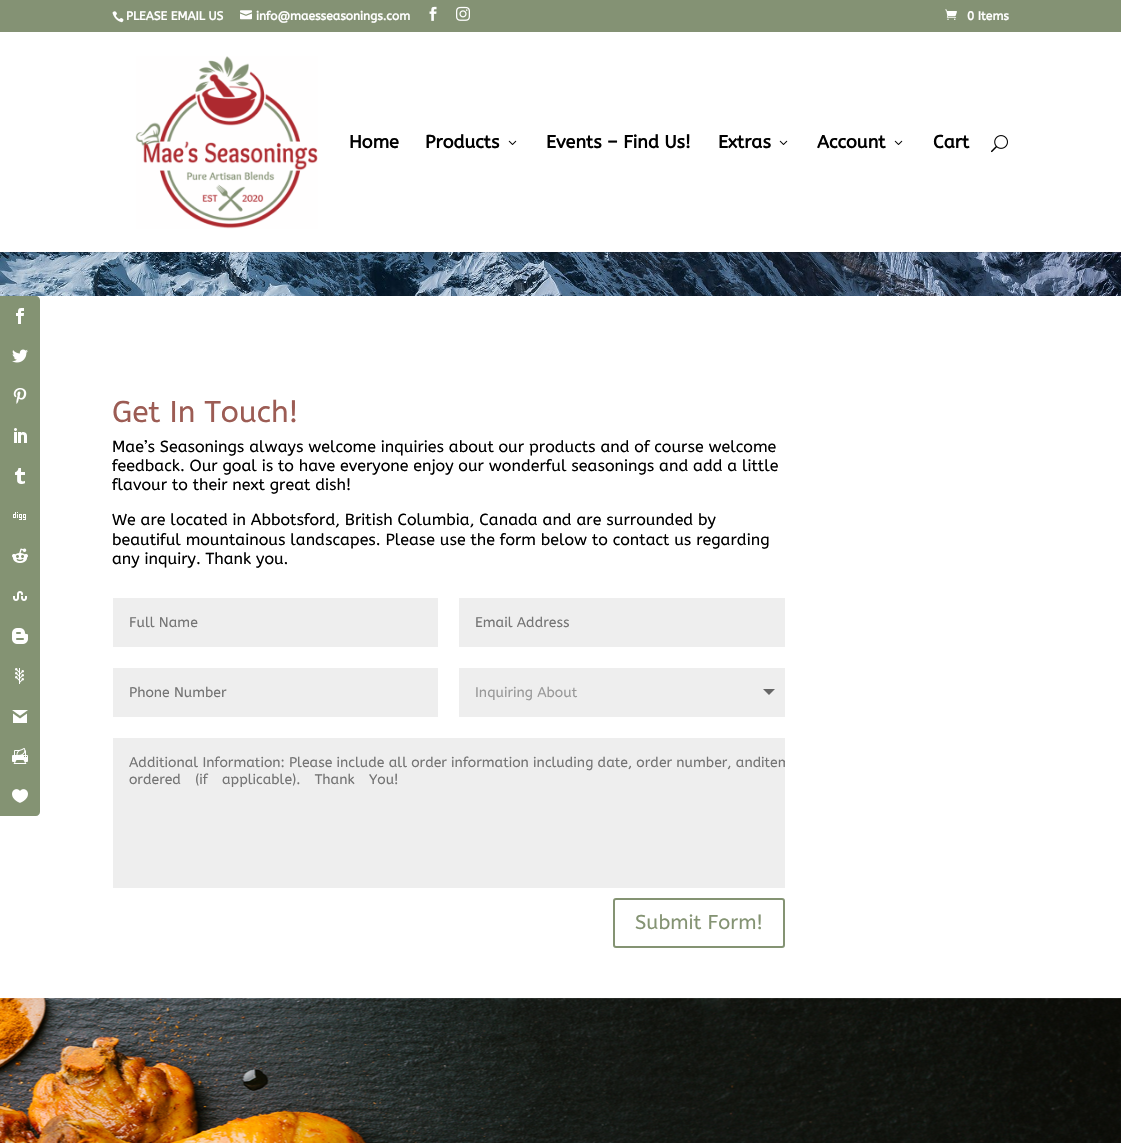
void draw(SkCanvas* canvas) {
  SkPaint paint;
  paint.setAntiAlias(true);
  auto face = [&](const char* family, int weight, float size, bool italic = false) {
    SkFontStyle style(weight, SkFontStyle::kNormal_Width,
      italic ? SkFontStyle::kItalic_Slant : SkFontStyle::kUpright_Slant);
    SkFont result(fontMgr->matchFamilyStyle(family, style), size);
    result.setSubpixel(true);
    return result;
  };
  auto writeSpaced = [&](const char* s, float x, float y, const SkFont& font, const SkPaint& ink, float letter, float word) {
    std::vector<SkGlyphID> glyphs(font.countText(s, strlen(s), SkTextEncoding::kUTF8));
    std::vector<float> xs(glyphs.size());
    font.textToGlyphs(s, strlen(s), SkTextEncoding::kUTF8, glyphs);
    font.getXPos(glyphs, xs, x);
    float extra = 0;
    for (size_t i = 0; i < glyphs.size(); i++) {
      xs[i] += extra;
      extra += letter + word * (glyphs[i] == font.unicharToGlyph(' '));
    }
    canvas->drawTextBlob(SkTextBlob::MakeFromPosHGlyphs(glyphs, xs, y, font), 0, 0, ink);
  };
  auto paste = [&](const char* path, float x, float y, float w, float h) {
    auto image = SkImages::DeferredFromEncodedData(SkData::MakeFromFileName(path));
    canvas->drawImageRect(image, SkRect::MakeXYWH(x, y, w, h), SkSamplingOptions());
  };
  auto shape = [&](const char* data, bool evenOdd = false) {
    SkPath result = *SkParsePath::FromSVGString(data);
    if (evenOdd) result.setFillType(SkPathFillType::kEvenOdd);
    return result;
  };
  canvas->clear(0xffffffff);
  paint.setColor(0xff849373);
  canvas->drawPath(shape("M0 296H36C38 296 40 298 40 300V336H0Z"), paint);
  paste("img/1.png", 16, 308, 8, 16);
  canvas->drawRect(SkRect::MakeXYWH(0, 336, 40, 440), paint);
  paste("img/2.png", 12, 349, 16, 14);
  paste("img/3.png", 13, 388, 14, 16);
  paste("img/4.png", 14, 428, 13, 15);
  paste("img/5.png", 15, 468, 10, 16);
  paste("img/6.png", 13, 512, 13, 8);
  paste("img/7.png", 12, 548, 16, 15);
  paste("img/8.png", 13, 591, 14, 10);
  paste("img/9.png", 12, 628, 16, 16);
  paste("img/10.png", 15, 668, 9, 16);
  paste("img/11.png", 12, 710, 16, 13);
  paste("img/12.png", 12, 748, 16, 16);
  canvas->drawPath(shape("M0 776H40V812C40 814 38 816 36 816H0Z"), paint);
  paste("img/13.png", 12, 789, 16, 14);
  paint.setColor(0xff849274);
  canvas->drawRect(SkRect::MakeXYWH(0, 0, 1121, 32), paint);
  paste("img/14.png", 112, 11, 12, 12);
  paste("img/15.png", 240, 10, 12, 10);
  paste("img/16.png", 429, 6, 8, 15);
  paste("img/17.png", 456, 6, 14, 15);
  paste("img/18.png", 945, 9, 12, 11);
  paste("img/22.png", 0, 252, 1121, 44);
  paint.setColor(0x1a000000);
  canvas->drawRect(SkRect::MakeXYWH(0, 252, 1121, 1), paint);
  paste("img/19.png", 135, 56, 183, 173);
  paste("img/20.png", 508, 140, 9, 5);
  paste("img/20.png", 779, 140, 9, 5);
  paste("img/20.png", 894, 140, 9, 5);
  paste("img/21.png", 991, 135, 17, 18);
  {
    const struct { float x, y, w, h; SkColor color; } items[] = {
      {113, 598, 325, 49, 0xffeeeeee},
      {459, 598, 326, 49, 0xffeeeeee},
      {113, 668, 325, 49, 0xffeeeeee},
      {459, 668, 326, 49, 0xffeeeeee},
    };
    for (auto [x, y, w, h, color] : items) {
      paint.setColor(color);
      canvas->drawRect(SkRect::MakeXYWH(x, y, w, h), paint);
    }
  }
  paint.setColor(0xff666666);
  canvas->drawPath(shape("M763 689H775L769 695Z"), paint);
  paint.setColor(0xffeeeeee);
  canvas->drawRect(SkRect::MakeXYWH(113, 738, 672, 150), paint);
  paint.setStroke(true);
  paint.setStrokeWidth(2);
  paint.setColor(0xff849373);
  canvas->drawRoundRect(SkRect::MakeXYWH(614, 899, 170, 48), 2, 2, paint);
  paste("img/23.png", 0, 998, 1121, 145);
  auto f0 = face("ABeeZee", 700, 12);
  paint.setStroke(false);
  paint.setColor(0xffffffff);
  {
    const struct { const char* s; float x, y; } items[] = {
      {"PLEASE EMAIL US", 126, 20},
      {"info@maesseasonings.com", 256, 20},
      {"0 Items", 967, 20},
    };
    for (auto [s, x, y] : items) {
      canvas->drawString(s, x, y, f0, paint);
    }
  }
  auto f1 = face("ABeeZee", 700, 18);
  paint.setColor(0xff000000);
  {
    const struct { const char* s; float x, y; } items[] = {
      {"Home", 349, 148},
      {"Products", 425, 148},
      {"Events – Find Us!", 546, 148},
      {"Extras", 718, 148},
      {"Account", 817, 148},
      {"Cart", 933, 148},
    };
    for (auto [s, x, y] : items) {
      canvas->drawString(s, x, y, f1, paint);
    }
  }
  auto f2 = face("ABeeZee", 400, 30);
  paint.setColor(0xff9c5c54);
  canvas->drawString("Get In Touch!", 112, 422, f2, paint);
  auto f3 = face("ABeeZee", 400, 16);
  paint.setColor(0xff000000);
  {
    const struct { const char* s; float x, y; } items[] = {
      {"Mae’s Seasonings always welcome inquiries about our products and of course welcome", 112, 452},
      {"feedback. Our goal is to have everyone enjoy our wonderful seasonings and add a little", 112, 471},
      {"flavour to their next great dish!", 112, 490},
      {"We are located in Abbotsford, British Columbia, Canada and are surrounded by", 112, 525},
      {"beautiful mountainous landscapes. Please use the form below to contact us regarding", 112, 545},
      {"any inquiry. Thank you.", 112, 564},
    };
    for (auto [s, x, y] : items) {
      canvas->drawString(s, x, y, f3, paint);
    }
  }
  auto f4 = face("ABeeZee", 400, 14);
  paint.setColor(0xff757575);
  {
    const struct { const char* s; float x, y; } items[] = {
      {"Full Name", 129, 627},
      {"Email Address", 475, 627},
      {"Phone Number", 129, 697},
    };
    for (auto [s, x, y] : items) {
      canvas->drawString(s, x, y, f4, paint);
    }
  }
  paint.setColor(0xff999999);
  canvas->drawString("Inquiring About", 475, 697, f4, paint);
  paint.setColor(0xff757575);
  canvas->drawString("Additional Information: Please include all order information including date, order number, and", 129, 767, f4, paint);
  canvas->save();
  canvas->clipRect(SkRect::MakeXYWH(113, 738, 672, 150));
  canvas->drawString("item", 761, 767, f4, paint);
  canvas->restore();
  writeSpaced("ordered (if applicable). Thank You!", 129, 784, f4, paint, 0, 10);
  auto f5 = face("ABeeZee", 400, 20);
  paint.setColor(0xff849373);
  canvas->drawString("Submit Form!", 635, 929, f5, paint);
}
